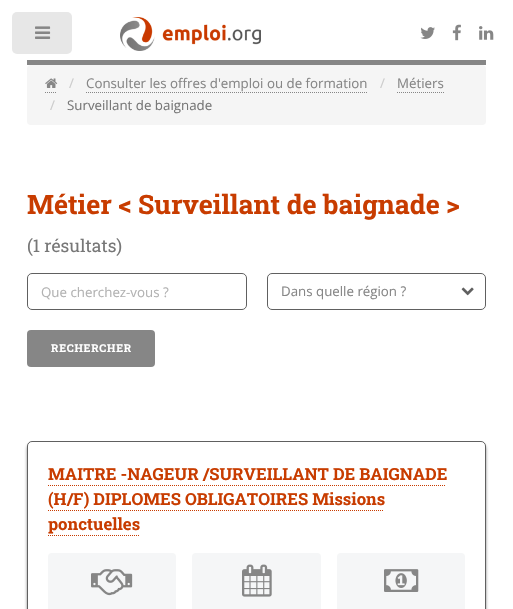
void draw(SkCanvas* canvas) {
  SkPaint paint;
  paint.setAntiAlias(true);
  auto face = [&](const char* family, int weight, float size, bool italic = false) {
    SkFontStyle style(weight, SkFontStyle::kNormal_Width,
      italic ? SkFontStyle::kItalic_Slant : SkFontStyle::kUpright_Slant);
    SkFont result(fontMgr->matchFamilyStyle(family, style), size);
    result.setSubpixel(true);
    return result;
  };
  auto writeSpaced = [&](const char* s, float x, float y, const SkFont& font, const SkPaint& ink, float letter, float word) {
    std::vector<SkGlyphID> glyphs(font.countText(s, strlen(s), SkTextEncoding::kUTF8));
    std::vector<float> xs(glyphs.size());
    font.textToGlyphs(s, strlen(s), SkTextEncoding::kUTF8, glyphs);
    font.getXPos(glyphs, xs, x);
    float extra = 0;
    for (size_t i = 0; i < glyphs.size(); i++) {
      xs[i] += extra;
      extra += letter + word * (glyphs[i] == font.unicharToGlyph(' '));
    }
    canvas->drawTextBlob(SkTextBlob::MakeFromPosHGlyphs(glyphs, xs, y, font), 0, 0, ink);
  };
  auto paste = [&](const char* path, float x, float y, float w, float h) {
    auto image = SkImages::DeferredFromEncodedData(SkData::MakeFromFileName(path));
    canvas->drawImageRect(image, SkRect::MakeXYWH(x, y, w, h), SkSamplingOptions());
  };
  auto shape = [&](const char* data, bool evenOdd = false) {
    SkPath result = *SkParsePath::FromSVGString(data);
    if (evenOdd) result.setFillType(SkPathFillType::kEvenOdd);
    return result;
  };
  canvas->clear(0xffffffff);
  paint.setColor(0xffe7e7e7);
  canvas->drawRoundRect(SkRect::MakeXYWH(12, 12, 60, 42), 5, 5, paint);
  paste("img/1.png", 35, 26, 16, 13);
  paint.setColor(0xff868686);
  canvas->drawRect(SkRect::MakeXYWH(27, 60, 459, 5), paint);
  paste("img/2.png", 120, 17, 141, 34);
  paste("img/3.png", 420, 27, 15, 12);
  paste("img/4.png", 452, 24, 9, 17);
  paste("img/5.png", 479, 26, 15, 14);
  paint.setColor(0xfff5f5f5);
  canvas->drawRoundRect(SkRect::MakeXYWH(27, 65, 459, 60), 4, 4, paint);
  paint.setStroke(true);
  paint.setStrokeWidth(1);
  paint.setColor(0xff868686);
  paint.setPathEffect(SkDashPathEffect::Make({{1, 1}}, 0));
  canvas->drawPath(shape("M45 92.5H57"), paint);
  paint.setPathEffect(nullptr);
  paste("img/6.png", 45, 78, 13, 10);
  paint.setPathEffect(SkDashPathEffect::Make({{1, 1}}, 0));
  canvas->drawPath(shape("M86 92.5H368"), paint);
  paint.setPathEffect(nullptr);
  paint.setPathEffect(SkDashPathEffect::Make({{1, 1}}, 0));
  canvas->drawPath(shape("M397 92.5H444"), paint);
  paint.setPathEffect(nullptr);
  paint.setColor(0xff606060);
  canvas->drawRoundRect(SkRect::MakeXYWH(27.5f, 273.5f, 219, 36), 4.5f, 4.5f, paint);
  canvas->drawRoundRect(SkRect::MakeXYWH(267.5f, 273.5f, 218, 36), 4.5f, 4.5f, paint);
  paste("img/7.png", 461, 287, 13, 9);
  paint.setStroke(false);
  paint.setColor(0xff868686);
  canvas->drawRoundRect(SkRect::MakeXYWH(27, 330, 128, 37), 4, 4, paint);
  canvas->save();
  canvas->clipPath(shape("M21 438H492V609H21ZM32 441H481C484 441 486 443 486 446V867C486 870 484 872 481 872H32C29 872 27 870 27 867V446C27 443 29 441 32 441Z", true), true);
  paint.setColor(0xff808080);
  paint.setMaskFilter(SkMaskFilter::MakeBlur(kNormal_SkBlurStyle, 1.5f));
  canvas->drawRoundRect(SkRect::MakeXYWH(27, 444, 459, 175), 5, 5, paint);
  paint.setMaskFilter(nullptr);
  canvas->restore();
  paint.setStroke(true);
  paint.setColor(0xbf2b2b2b);
  canvas->drawRoundRect(SkRect::MakeXYWH(27.5f, 441.5f, 458, 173), 4.5f, 4.5f, paint);
  paint.setColor(0xffc83c00);
  paint.setPathEffect(SkDashPathEffect::Make({{1, 1}}, 0));
  canvas->drawPath(shape("M48 485.5H446"), paint);
  paint.setPathEffect(nullptr);
  paint.setPathEffect(SkDashPathEffect::Make({{1, 1}}, 0));
  canvas->drawPath(shape("M48 510.5H384"), paint);
  paint.setPathEffect(nullptr);
  paint.setPathEffect(SkDashPathEffect::Make({{1, 1}}, 0));
  canvas->drawPath(shape("M48 535.5H139"), paint);
  paint.setPathEffect(nullptr);
  paint.setStroke(false);
  paint.setColor(0xfff5f6f7);
  canvas->drawRoundRect(SkRect::MakeXYWH(48, 553, 128, 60), 4, 4, paint);
  paste("img/8.png", 91, 569, 42, 27);
  canvas->drawRoundRect(SkRect::MakeXYWH(192, 553, 129, 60), 4, 4, paint);
  paste("img/9.png", 242, 564, 30, 33);
  canvas->drawRoundRect(SkRect::MakeXYWH(337, 553, 128, 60), 4, 4, paint);
  paste("img/10.png", 384, 569, 35, 23);
  auto f0 = face("Open Sans", 400, 13.3f);
  paint.setColor(0xffcccccc);
  canvas->drawString("/", 69, 88, f0, paint);
  paint.setColor(0xff868686);
  canvas->drawString("Consulter les offres d'emploi ou de formation", 86, 88, f0, paint);
  paint.setColor(0xffcccccc);
  canvas->drawString("/", 380, 88, f0, paint);
  paint.setColor(0xff868686);
  canvas->drawString("Métiers", 397, 88, f0, paint);
  paint.setColor(0xffcccccc);
  canvas->drawString("/", 50, 110, f0, paint);
  paint.setColor(0xff777777);
  canvas->drawString("Surveillant de baignade", 67, 110, f0, paint);
  auto f1 = face("Roboto Slab", 700, 26.7f);
  paint.setColor(0xffc83c00);
  canvas->drawString("Métier < Surveillant de baignade >", 27, 214, f1, paint);
  auto f2 = face("Roboto Slab", 400, 17.5f);
  paint.setColor(0xff777777);
  canvas->drawString("(1 résultats)", 27, 252, f2, paint);
  paint.setColor(0xffb2b2b2);
  canvas->drawString("Que cherchez-vous ?", 41, 297, f0, paint);
  paint.setColor(0xff868686);
  canvas->drawString("Dans quelle région ?", 281, 296, f0, paint);
  auto f3 = face("Roboto Slab", 700, 10.75f);
  paint.setColor(0xffffffff);
  writeSpaced("RECHERCHER", 51, 352, f3, paint, 0.75f, 0);
  auto f4 = face("Roboto Slab", 700, 16.7f);
  paint.setColor(0xffc83c00);
  {
    const struct { const char* s; float x, y; } items[] = {
      {"MAITRE -NAGEUR /SURVEILLANT DE BAIGNADE", 48, 480},
      {"(H/F) DIPLOMES OBLIGATOIRES Missions", 48, 505},
      {"ponctuelles", 48, 530},
    };
    for (auto [s, x, y] : items) {
      canvas->drawString(s, x, y, f4, paint);
    }
  }
}
